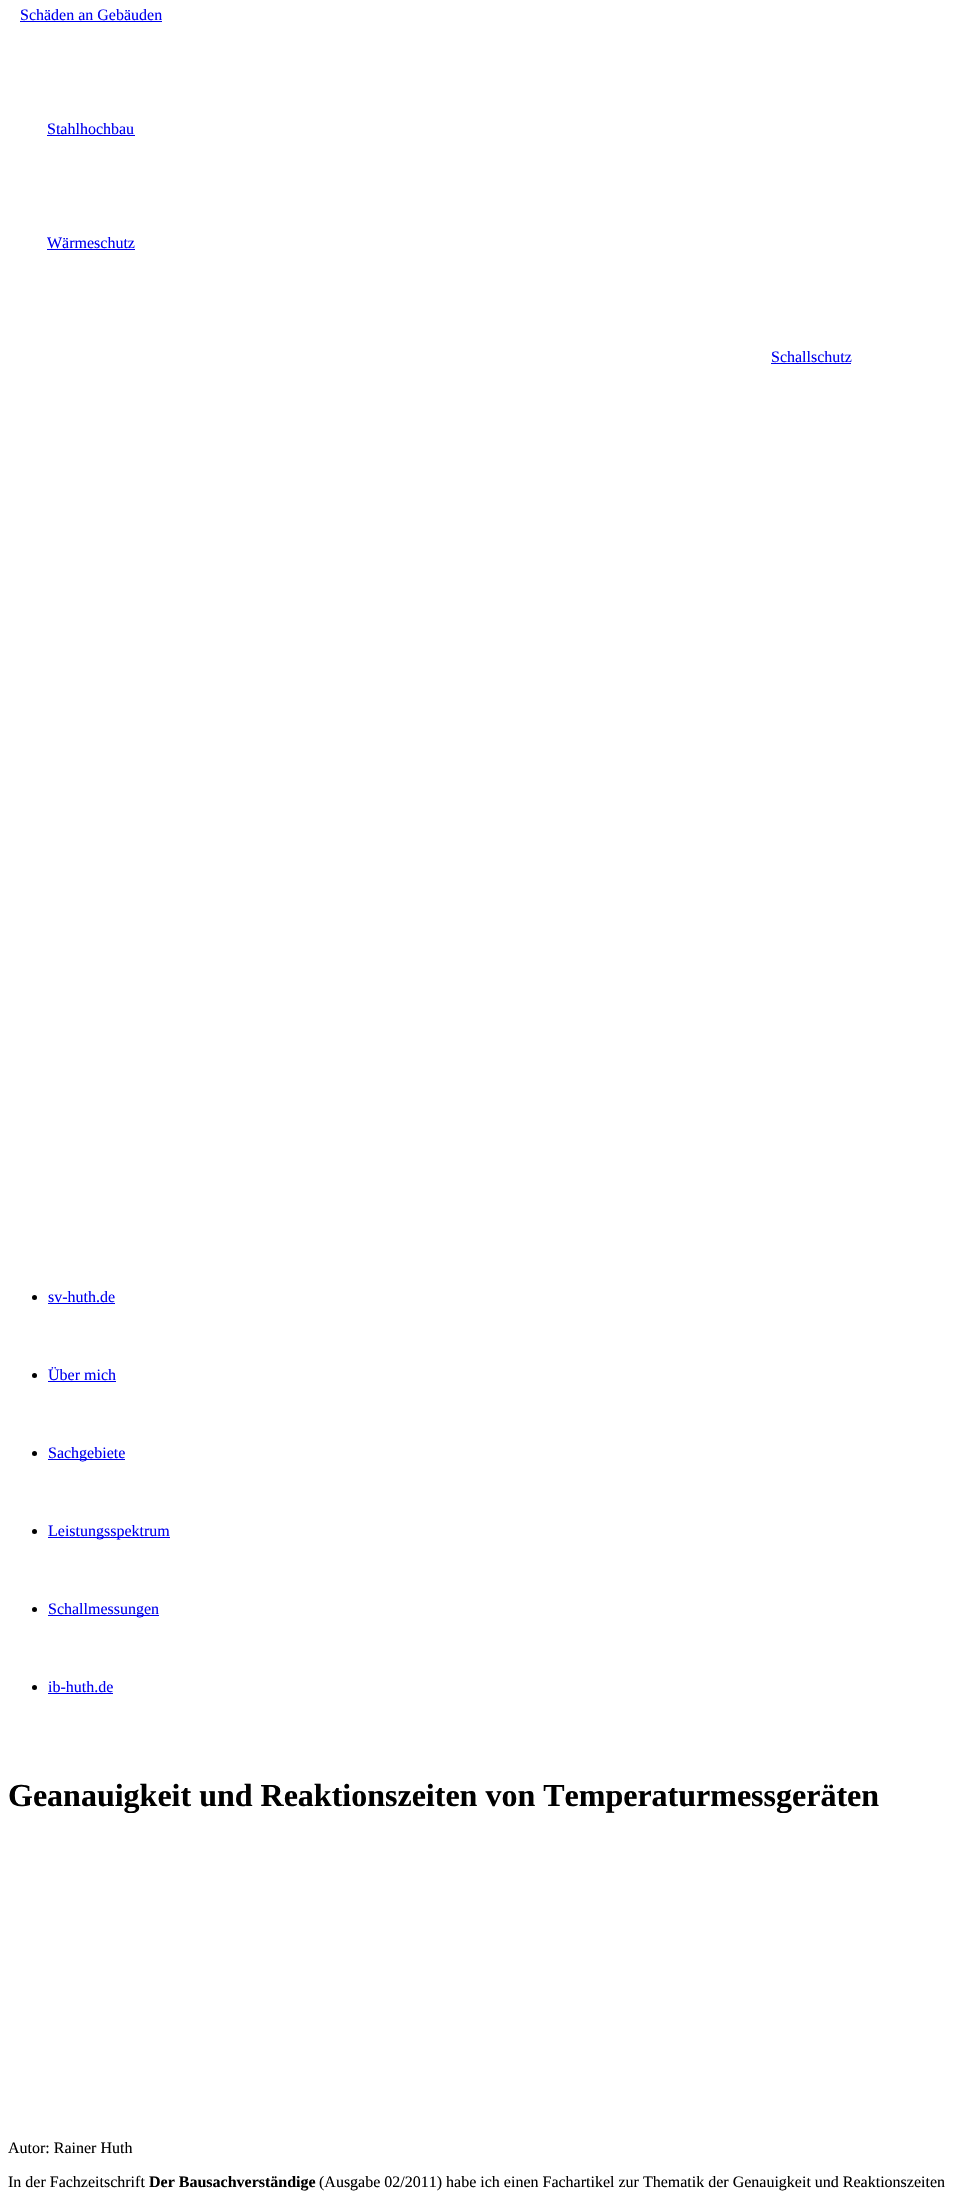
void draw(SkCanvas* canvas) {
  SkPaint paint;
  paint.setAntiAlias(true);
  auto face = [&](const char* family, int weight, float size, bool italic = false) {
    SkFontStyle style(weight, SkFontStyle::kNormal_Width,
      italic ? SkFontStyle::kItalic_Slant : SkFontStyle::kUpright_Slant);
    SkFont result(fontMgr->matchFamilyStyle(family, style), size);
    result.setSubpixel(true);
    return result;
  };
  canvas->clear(0xffffffff);
  {
    const struct { float x, y, w, h; SkColor color; } items[] = {
      {20, 21, 142, 1, 0xff0000ee},
      {47, 135, 88, 1, 0xff0000ee},
      {47, 249, 88, 1, 0xff0000ee},
      {771, 363, 80, 1, 0xff0000ee},
    };
    for (auto [x, y, w, h, color] : items) {
      paint.setColor(color);
      canvas->drawRect(SkRect::MakeXYWH(x, y, w, h), paint);
    }
  }
  paint.setColor(0xff000000);
  canvas->drawCircle(34.5f, 1297.5f, 2.5f, paint);
  paint.setColor(0xff0000ee);
  canvas->drawRect(SkRect::MakeXYWH(48, 1303, 67, 1), paint);
  paint.setColor(0xff000000);
  canvas->drawCircle(34.5f, 1375.5f, 2.5f, paint);
  paint.setColor(0xff0000ee);
  canvas->drawRect(SkRect::MakeXYWH(48, 1381, 68, 1), paint);
  paint.setColor(0xff000000);
  canvas->drawCircle(34.5f, 1453.5f, 2.5f, paint);
  paint.setColor(0xff0000ee);
  canvas->drawRect(SkRect::MakeXYWH(48, 1459, 77, 1), paint);
  paint.setColor(0xff000000);
  canvas->drawCircle(34.5f, 1531.5f, 2.5f, paint);
  paint.setColor(0xff0000ee);
  canvas->drawRect(SkRect::MakeXYWH(48, 1537, 122, 1), paint);
  paint.setColor(0xff000000);
  canvas->drawCircle(34.5f, 1609.5f, 2.5f, paint);
  paint.setColor(0xff0000ee);
  canvas->drawRect(SkRect::MakeXYWH(48, 1615, 111, 1), paint);
  paint.setColor(0xff000000);
  canvas->drawCircle(34.5f, 1687.5f, 2.5f, paint);
  paint.setColor(0xff0000ee);
  canvas->drawRect(SkRect::MakeXYWH(48, 1693, 65, 1), paint);
  auto f0 = face("Liberation Serif", 400, 16);
  {
    const struct { const char* s; float x, y; } items[] = {
      {"Schäden an Gebäuden", 20, 20},
      {"Stahlhochbau", 47, 134},
      {"Wärmeschutz", 47, 248},
      {"Schallschutz", 771, 362},
      {"sv-huth.de", 48, 1302},
      {"Über mich", 48, 1380},
      {"Sachgebiete", 48, 1458},
      {"Leistungsspektrum", 48, 1536},
      {"Schallmessungen", 48, 1614},
      {"ib-huth.de", 48, 1692},
    };
    for (auto [s, x, y] : items) {
      canvas->drawString(s, x, y, f0, paint);
    }
  }
  auto f1 = face("Liberation Serif", 700, 32);
  paint.setColor(0xff000000);
  canvas->drawString("Geanauigkeit und Reaktionszeiten von Temperaturmessgeräten", 8, 1806, f1, paint);
  canvas->drawString("Autor: Rainer Huth", 8, 2153, f0, paint);
  canvas->drawString("In der Fachzeitschrift", 8, 2187, f0, paint);
  auto f2 = face("Liberation Serif", 700, 16);
  canvas->drawString("Der Bausachverständige", 149, 2187, f2, paint);
  canvas->drawString("(Ausgabe 02/2011) habe ich einen Fachartikel zur Thematik der Genauigkeit und Reaktionszeiten", 319, 2187, f0, paint);
}
